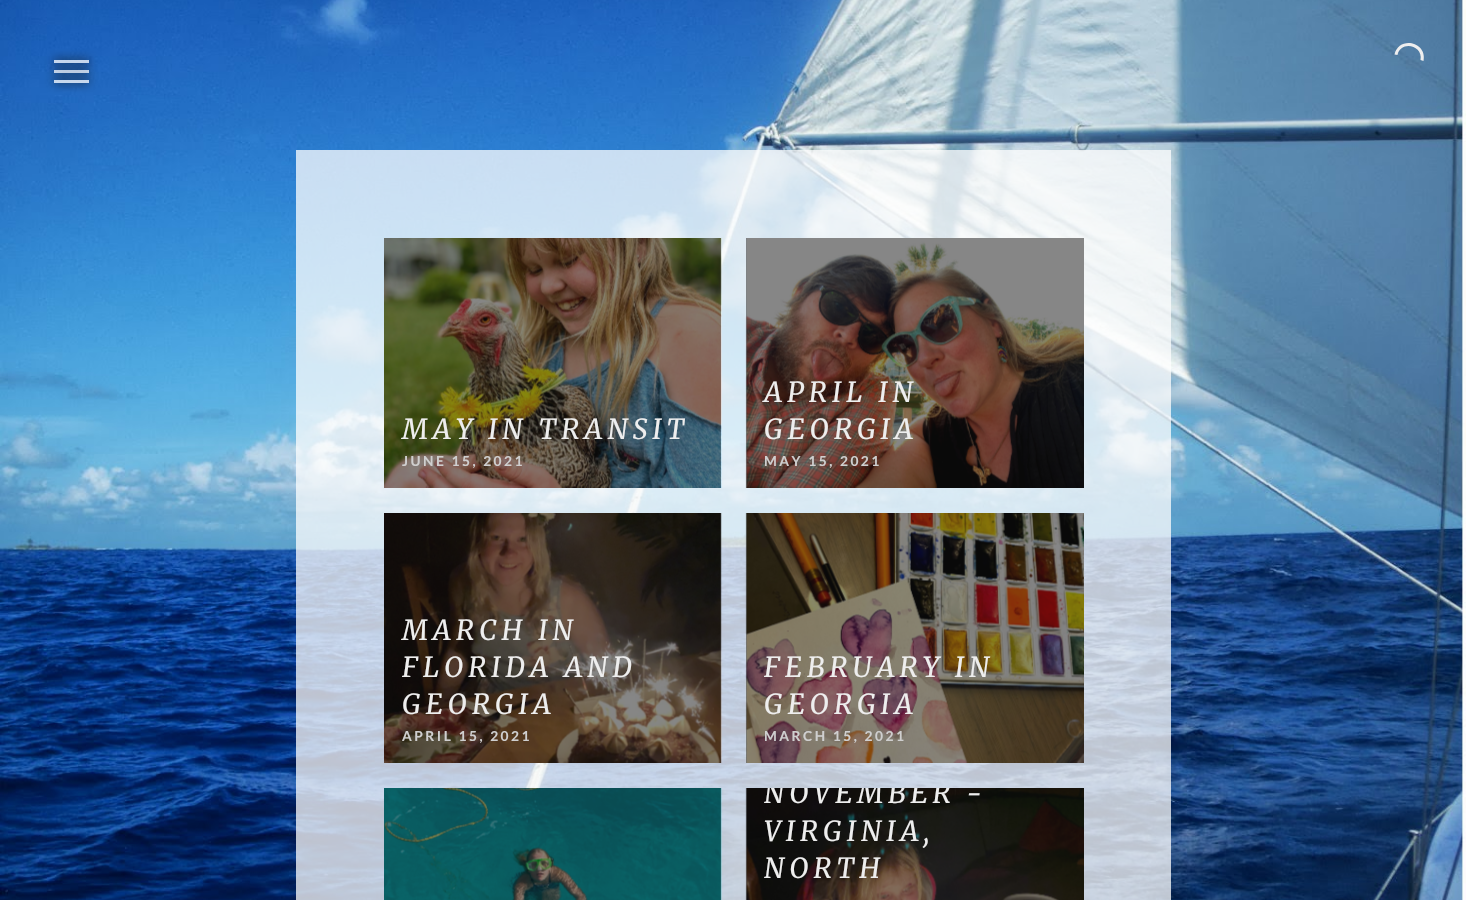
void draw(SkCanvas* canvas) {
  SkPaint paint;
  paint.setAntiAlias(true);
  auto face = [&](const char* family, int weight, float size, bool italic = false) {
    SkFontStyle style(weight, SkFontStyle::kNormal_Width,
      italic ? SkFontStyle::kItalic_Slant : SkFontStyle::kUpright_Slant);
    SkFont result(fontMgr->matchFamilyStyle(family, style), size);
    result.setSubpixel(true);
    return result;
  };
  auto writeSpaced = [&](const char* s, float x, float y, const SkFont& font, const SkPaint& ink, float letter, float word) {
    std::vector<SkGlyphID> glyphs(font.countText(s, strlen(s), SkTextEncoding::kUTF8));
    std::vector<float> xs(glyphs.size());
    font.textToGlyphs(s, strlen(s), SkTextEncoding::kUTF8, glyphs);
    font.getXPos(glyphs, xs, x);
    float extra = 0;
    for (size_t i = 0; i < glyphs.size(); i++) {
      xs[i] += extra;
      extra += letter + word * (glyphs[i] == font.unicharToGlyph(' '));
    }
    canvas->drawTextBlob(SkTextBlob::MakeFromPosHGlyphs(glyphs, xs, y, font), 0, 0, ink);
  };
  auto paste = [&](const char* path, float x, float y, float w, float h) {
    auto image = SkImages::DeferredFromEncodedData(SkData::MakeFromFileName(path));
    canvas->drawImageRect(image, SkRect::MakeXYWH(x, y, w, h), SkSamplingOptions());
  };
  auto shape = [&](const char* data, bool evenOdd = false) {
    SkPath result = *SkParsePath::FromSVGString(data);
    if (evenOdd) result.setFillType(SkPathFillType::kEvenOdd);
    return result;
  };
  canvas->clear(0xffffffff);
  paste("img/1.png", 0, 0, 1466, 900);
  canvas->save();
  canvas->clipPath(shape("M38 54H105V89H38ZM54 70H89V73H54Z", true), true);
  paint.setColor(0xff111111);
  paint.setMaskFilter(SkMaskFilter::MakeBlur(kNormal_SkBlurStyle, 5));
  canvas->drawRect(SkRect::MakeXYWH(54, 70, 35, 3), paint);
  paint.setMaskFilter(nullptr);
  canvas->restore();
  paint.setColor(0xbffdfdfd);
  canvas->drawRect(SkRect::MakeXYWH(54, 70, 35, 3), paint);
  canvas->save();
  canvas->clipPath(shape("M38 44H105V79H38ZM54 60H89V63H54Z", true), true);
  paint.setColor(0xff111111);
  paint.setMaskFilter(SkMaskFilter::MakeBlur(kNormal_SkBlurStyle, 5));
  canvas->drawRect(SkRect::MakeXYWH(54, 60, 35, 3), paint);
  paint.setMaskFilter(nullptr);
  canvas->restore();
  paint.setColor(0xbffdfdfd);
  canvas->drawRect(SkRect::MakeXYWH(54, 60, 35, 3), paint);
  canvas->save();
  canvas->clipPath(shape("M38 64H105V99H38ZM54 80H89V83H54Z", true), true);
  paint.setColor(0xff111111);
  paint.setMaskFilter(SkMaskFilter::MakeBlur(kNormal_SkBlurStyle, 5));
  canvas->drawRect(SkRect::MakeXYWH(54, 80, 35, 3), paint);
  paint.setMaskFilter(nullptr);
  canvas->restore();
  paint.setColor(0xbffdfdfd);
  canvas->drawRect(SkRect::MakeXYWH(54, 80, 35, 3), paint);
  paint.setColor(0xffeeeeee);
  canvas->drawPath(shape("M1423.5 61C1427.5 41.5 1398.5 35.5 1394.5 54.5L1397.5 55C1400.5 40 1423.5 45 1420.5 60Z"), paint);
  paint.setColor(0xbffdfdfd);
  canvas->drawRect(SkRect::MakeXYWH(296, 150, 875, 750), paint);
  paste("img/2.png", 384, 238, 338, 250);
  paint.setColor(0x80111111);
  canvas->drawRect(SkRect::MakeXYWH(384, 238, 337, 250), paint);
  paste("img/3.png", 745, 238, 339, 250);
  canvas->drawRect(SkRect::MakeXYWH(746, 238, 338, 250), paint);
  paste("img/4.png", 384, 513, 338, 250);
  canvas->drawRect(SkRect::MakeXYWH(384, 513, 337, 250), paint);
  paste("img/5.png", 745, 513, 339, 250);
  canvas->drawRect(SkRect::MakeXYWH(746, 513, 338, 250), paint);
  paste("img/6.png", 384, 788, 338, 112);
  canvas->drawRect(SkRect::MakeXYWH(384, 788, 337, 112), paint);
  paste("img/7.png", 745, 788, 339, 112);
  canvas->drawRect(SkRect::MakeXYWH(746, 788, 338, 112), paint);
  auto f0 = face("Merriweather", 400, 27.5f, true);
  paint.setColor(0xffeeeeee);
  writeSpaced("MAY IN TRANSIT", 402, 439, f0, paint, 5, 0);
  auto f1 = face("Lato", 700, 13.75f);
  paint.setColor(0xffcfcfcf);
  writeSpaced("JUNE 15, 2021", 402, 466, f1, paint, 2.5f, 0);
  paint.setColor(0xffeeeeee);
  writeSpaced("APRIL IN", 764, 402, f0, paint, 5, 0);
  writeSpaced("GEORGIA", 764, 439, f0, paint, 5, 0);
  paint.setColor(0xffcfcfcf);
  writeSpaced("MAY 15, 2021", 764, 466, f1, paint, 2.5f, 0);
  paint.setColor(0xffeeeeee);
  {
    const struct { const char* s; float x, y; } items[] = {
      {"MARCH IN", 402, 640},
      {"FLORIDA AND", 402, 677},
      {"GEORGIA", 402, 714},
    };
    for (auto [s, x, y] : items) {
      writeSpaced(s, x, y, f0, paint, 5, 0);
    }
  }
  paint.setColor(0xffcfcfcf);
  writeSpaced("APRIL 15, 2021", 402, 741, f1, paint, 2.5f, 0);
  paint.setColor(0xffeeeeee);
  writeSpaced("FEBRUARY IN", 764, 677, f0, paint, 5, 0);
  writeSpaced("GEORGIA", 764, 714, f0, paint, 5, 0);
  paint.setColor(0xffcfcfcf);
  writeSpaced("MARCH 15, 2021", 764, 741, f1, paint, 2.5f, 0);
  canvas->save();
  canvas->clipRect(SkRect::MakeXYWH(746, 788, 338, 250));
  paint.setColor(0xffeeeeee);
  writeSpaced("NOVEMBER -", 764, 803, f0, paint, 5, 0);
  canvas->restore();
  writeSpaced("VIRGINIA,", 764, 841, f0, paint, 5, 0);
  writeSpaced("NORTH", 764, 878, f0, paint, 5, 0);
}
